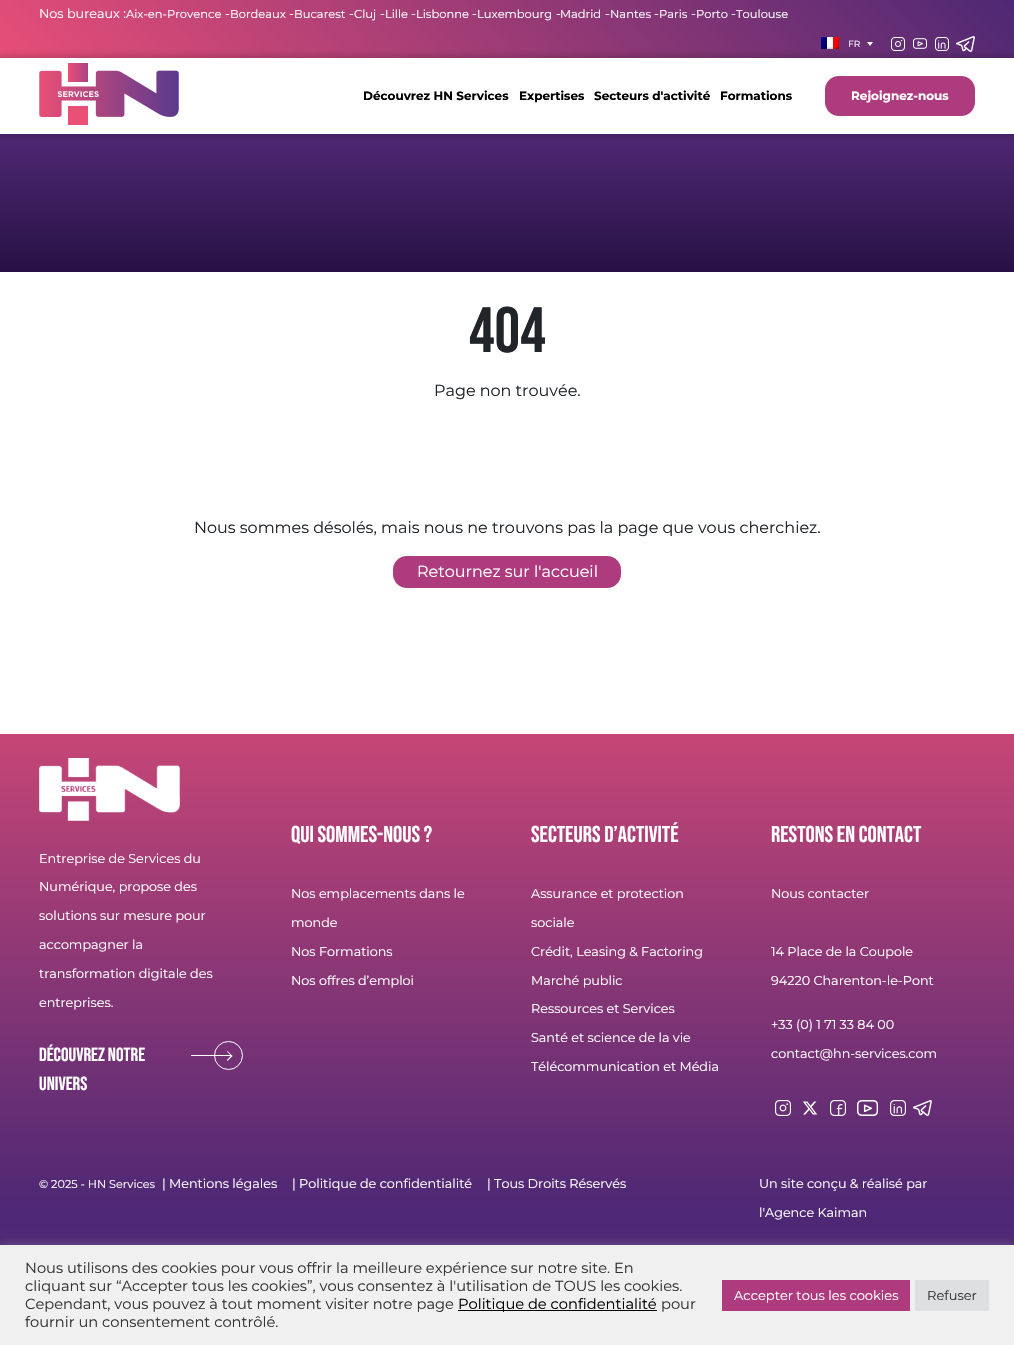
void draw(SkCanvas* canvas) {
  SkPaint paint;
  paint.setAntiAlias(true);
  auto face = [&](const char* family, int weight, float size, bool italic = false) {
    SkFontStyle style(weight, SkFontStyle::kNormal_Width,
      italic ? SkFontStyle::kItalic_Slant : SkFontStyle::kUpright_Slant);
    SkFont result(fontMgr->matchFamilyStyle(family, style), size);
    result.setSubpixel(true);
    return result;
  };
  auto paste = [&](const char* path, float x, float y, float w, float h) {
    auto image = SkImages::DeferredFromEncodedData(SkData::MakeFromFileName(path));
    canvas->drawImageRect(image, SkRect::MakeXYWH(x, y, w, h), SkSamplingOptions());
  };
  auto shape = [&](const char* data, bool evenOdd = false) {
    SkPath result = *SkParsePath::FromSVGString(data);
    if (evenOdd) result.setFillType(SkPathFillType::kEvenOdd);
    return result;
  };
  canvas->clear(0xffffffff);
  {
    const SkColor colors[] = {0xffe74e77, 0xff4e2874};
    const float stops[] = {0, 1};
    const SkPoint ends[] = {{239, 297}, {775, -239}};
    paint.setShader(SkGradientShader::MakeLinear(ends, colors, stops, 2, SkTileMode::kClamp));
    paint.setAlpha(255);
  }
  canvas->drawRect(SkRect::MakeXYWH(0, 0, 1014, 58), paint);
  paste("img/1.png", 821, 37, 18, 12);
  paint.setShader(nullptr);
  paint.setColor(0xffffffff);
  canvas->drawPath(shape("M867 42H873L870 46Z"), paint);
  paste("img/2.png", 891, 37, 14, 14);
  paste("img/3.png", 913, 38, 14, 11);
  paste("img/4.png", 935, 37, 14, 14);
  paste("img/5.png", 956, 36, 19, 16);
  {
    const SkColor colors[] = {0xff0e0223, 0xff4e2874};
    const float stops[] = {0.3f, 1};
    const SkPoint ends[] = {{507, 464}, {507, 134}};
    paint.setShader(SkGradientShader::MakeLinear(ends, colors, stops, 2, SkTileMode::kClamp));
    paint.setAlpha(255);
  }
  canvas->drawRect(SkRect::MakeXYWH(0, 134, 1014, 138), paint);
  paint.setShader(nullptr);
  paint.setColor(0x29000000);
  paint.setMaskFilter(SkMaskFilter::MakeBlur(kNormal_SkBlurStyle, 3));
  canvas->drawRect(SkRect::MakeXYWH(-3, 55, 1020, 82), paint);
  paint.setMaskFilter(nullptr);
  paint.setColor(0xffffffff);
  canvas->drawRect(SkRect::MakeXYWH(0, 58, 1014, 76), paint);
  paste("img/6.png", 39, 63, 140, 62);
  paint.setColor(0xffae3b7e);
  canvas->drawRoundRect(SkRect::MakeXYWH(825, 76, 150, 40), 14, 14, paint);
  canvas->drawRoundRect(SkRect::MakeXYWH(393, 556, 228, 32), 14, 14, paint);
  {
    const SkColor colors[] = {0xffe74e77, 0xff4e2874};
    const float stops[] = {0, 0.92f};
    const SkPoint ends[] = {{507, 603}, {507, 1259}};
    paint.setShader(SkGradientShader::MakeLinear(ends, colors, stops, 2, SkTileMode::kClamp));
    paint.setAlpha(255);
  }
  canvas->drawRect(SkRect::MakeXYWH(0, 734, 1014, 511), paint);
  paste("img/7.png", 39, 758, 141, 63);
  paint.setShader(nullptr);
  paint.setColor(0xffffffff);
  canvas->drawRect(SkRect::MakeXYWH(191, 1055, 40, 1), paint);
  paint.setStroke(true);
  paint.setStrokeWidth(1);
  canvas->drawCircle(228.5f, 1055.5f, 14, paint);
  paint.setStroke(false);
  canvas->drawPath(shape("M227.5 1051L232.5 1056L231.5 1056.5L227 1051.5Z"), paint);
  canvas->drawPath(shape("M231.5 1055L232.5 1056L227.5 1061L227 1060Z"), paint);
  paste("img/8.png", 775, 1100, 16, 16);
  paste("img/9.png", 803, 1101, 15, 14);
  paste("img/10.png", 830, 1100, 16, 16);
  paste("img/11.png", 857, 1100, 21, 16);
  paste("img/12.png", 890, 1100, 16, 16);
  paste("img/13.png", 913, 1100, 19, 16);
  paint.setColor(0x4dacabab);
  paint.setMaskFilter(SkMaskFilter::MakeBlur(kNormal_SkBlurStyle, 5));
  canvas->drawRect(SkRect::MakeXYWH(0, 1244, 1014, 100), paint);
  paint.setMaskFilter(nullptr);
  {
    const struct { float x, y, w, h; SkColor color; } items[] = {
      {0, 1245, 1014, 100, 0xfff0f0f0},
      {458, 1310, 199, 1, 0xff000000},
      {722, 1280, 188, 31, 0xffae3b7e},
      {915, 1280, 74, 31, 0xffdedfe0},
    };
    for (auto [x, y, w, h, color] : items) {
      paint.setColor(color);
      canvas->drawRect(SkRect::MakeXYWH(x, y, w, h), paint);
    }
  }
  auto f0 = face("Montserrat", 400, 12.75f);
  paint.setColor(0xffffffff);
  canvas->drawString("Nos bureaux :", 39, 18, f0, paint);
  auto f1 = face("Montserrat", 400, 11.5f);
  canvas->drawString("Aix-en-Provence", 126, 18, f1, paint);
  canvas->drawString("-", 225, 18, f0, paint);
  canvas->drawString("Bordeaux", 230, 18, f1, paint);
  canvas->drawString("-", 289, 18, f0, paint);
  canvas->drawString("Bucarest", 294, 18, f1, paint);
  canvas->drawString("-", 349, 18, f0, paint);
  canvas->drawString("Cluj", 354, 18, f1, paint);
  canvas->drawString("-", 380, 18, f0, paint);
  canvas->drawString("Lille", 385, 18, f1, paint);
  canvas->drawString("-", 411, 18, f0, paint);
  canvas->drawString("Lisbonne", 416, 18, f1, paint);
  canvas->drawString("-", 472, 18, f0, paint);
  canvas->drawString("Luxembourg", 477, 18, f1, paint);
  canvas->drawString("-", 556, 18, f0, paint);
  canvas->drawString("Madrid", 560, 18, f1, paint);
  canvas->drawString("-", 605, 18, f0, paint);
  canvas->drawString("Nantes", 610, 18, f1, paint);
  canvas->drawString("-", 654, 18, f0, paint);
  canvas->drawString("Paris", 659, 18, f1, paint);
  canvas->drawString("-", 691, 18, f0, paint);
  canvas->drawString("Porto", 696, 18, f1, paint);
  canvas->drawString("-", 731, 18, f0, paint);
  canvas->drawString("Toulouse", 736, 18, f1, paint);
  auto f2 = face("Montserrat", 400, 9);
  canvas->drawString("FR", 848, 47, f2, paint);
  auto f3 = face("Montserrat", 700, 12);
  paint.setColor(0xff000000);
  {
    const struct { const char* s; float x, y; } items[] = {
      {"Découvrez HN Services", 363, 100},
      {"Expertises", 519, 100},
      {"Secteurs d'activité", 594, 100},
      {"Formations", 720, 100},
    };
    for (auto [s, x, y] : items) {
      canvas->drawString(s, x, y, f3, paint);
    }
  }
  paint.setColor(0xffffffff);
  canvas->drawString("Rejoignez-nous", 851, 100, f3, paint);
  auto f4 = face("Bebas Neue", 400, 64);
  paint.setColor(0xff212529);
  canvas->drawString("404", 469, 352, f4, paint);
  auto f5 = face("Montserrat", 400, 16);
  canvas->drawString("Page non trouvée.", 434, 396, f5, paint);
  canvas->drawString("Nous sommes désolés, mais nous ne trouvons pas la page que vous cherchiez.", 194, 533, f5, paint);
  paint.setColor(0xffffffff);
  canvas->drawString("Retournez sur l'accueil", 417, 577, f5, paint);
  {
    const struct { const char* s; float x, y; } items[] = {
      {"Entreprise de Services du", 39, 863},
      {"Numérique, propose des", 39, 891},
      {"solutions sur mesure pour", 39, 920},
      {"accompagner la", 39, 949},
      {"transformation digitale des", 39, 978},
      {"entreprises.", 39, 1007},
    };
    for (auto [s, x, y] : items) {
      canvas->drawString(s, x, y, f0, paint);
    }
  }
  auto f6 = face("Bebas Neue", 400, 19);
  canvas->drawString("Découvrez notre", 39, 1061, f6, paint);
  canvas->drawString("univers", 39, 1090, f6, paint);
  auto f7 = face("Bebas Neue", 400, 23);
  canvas->drawString("Qui sommes-nous ?", 291, 842, f7, paint);
  {
    const struct { const char* s; float x, y; } items[] = {
      {"Nos emplacements dans le", 291, 898},
      {"monde", 291, 927},
      {"Nos Formations", 291, 956},
      {"Nos offres d’emploi", 291, 985},
    };
    for (auto [s, x, y] : items) {
      canvas->drawString(s, x, y, f0, paint);
    }
  }
  canvas->drawString("Secteurs d’activité", 531, 842, f7, paint);
  {
    const struct { const char* s; float x, y; } items[] = {
      {"Assurance et protection", 531, 898},
      {"sociale", 531, 927},
      {"Crédit, Leasing & Factoring", 531, 956},
      {"Marché public", 531, 985},
      {"Ressources et Services", 531, 1013},
      {"Santé et science de la vie", 531, 1042},
      {"Télécommunication et Média", 531, 1071},
    };
    for (auto [s, x, y] : items) {
      canvas->drawString(s, x, y, f0, paint);
    }
  }
  canvas->drawString("Restons en contact", 771, 842, f7, paint);
  {
    const struct { const char* s; float x, y; } items[] = {
      {"Nous contacter", 771, 898},
      {"14 Place de la Coupole", 771, 956},
      {"94220 Charenton-le-Pont", 771, 985},
      {"+33 (0) 1 71 33 84 00", 771, 1029},
      {"contact@hn-services.com", 771, 1058},
    };
    for (auto [s, x, y] : items) {
      canvas->drawString(s, x, y, f0, paint);
    }
  }
  auto f8 = face("Montserrat", 400, 11.25f);
  canvas->drawString("© 2025 - HN Services", 39, 1188, f8, paint);
  {
    const struct { const char* s; float x, y; } items[] = {
      {"| Mentions légales", 162, 1188},
      {"| Politique de confidentialité", 292, 1188},
      {"| Tous Droits Réservés", 487, 1188},
      {"Un site conçu & réalisé par", 759, 1188},
      {"l'Agence Kaiman", 759, 1217},
    };
    for (auto [s, x, y] : items) {
      canvas->drawString(s, x, y, f0, paint);
    }
  }
  auto f9 = face("Montserrat", 400, 14.65f);
  paint.setColor(0xff333333);
  {
    const struct { const char* s; float x, y; } items[] = {
      {"Nous utilisons des cookies pour vous offrir la meilleure expérience sur notre site. En", 25, 1273},
      {"cliquant sur “Accepter tous les cookies”, vous consentez à l'utilisation de TOUS les cookies.", 25, 1291},
      {"Cependant, vous pouvez à tout moment visiter notre page", 25, 1309},
    };
    for (auto [s, x, y] : items) {
      canvas->drawString(s, x, y, f9, paint);
    }
  }
  paint.setColor(0xff000000);
  canvas->drawString("Politique de confidentialité", 458, 1309, f9, paint);
  paint.setColor(0xff333333);
  canvas->drawString("pour", 661, 1309, f9, paint);
  canvas->drawString("fournir un consentement contrôlé.", 25, 1327, f9, paint);
  auto f10 = face("Montserrat", 400, 13);
  paint.setColor(0xffffffff);
  canvas->drawString("Accepter tous les cookies", 734, 1300, f10, paint);
  paint.setColor(0xff333333);
  canvas->drawString("Refuser", 927, 1300, f10, paint);
}
